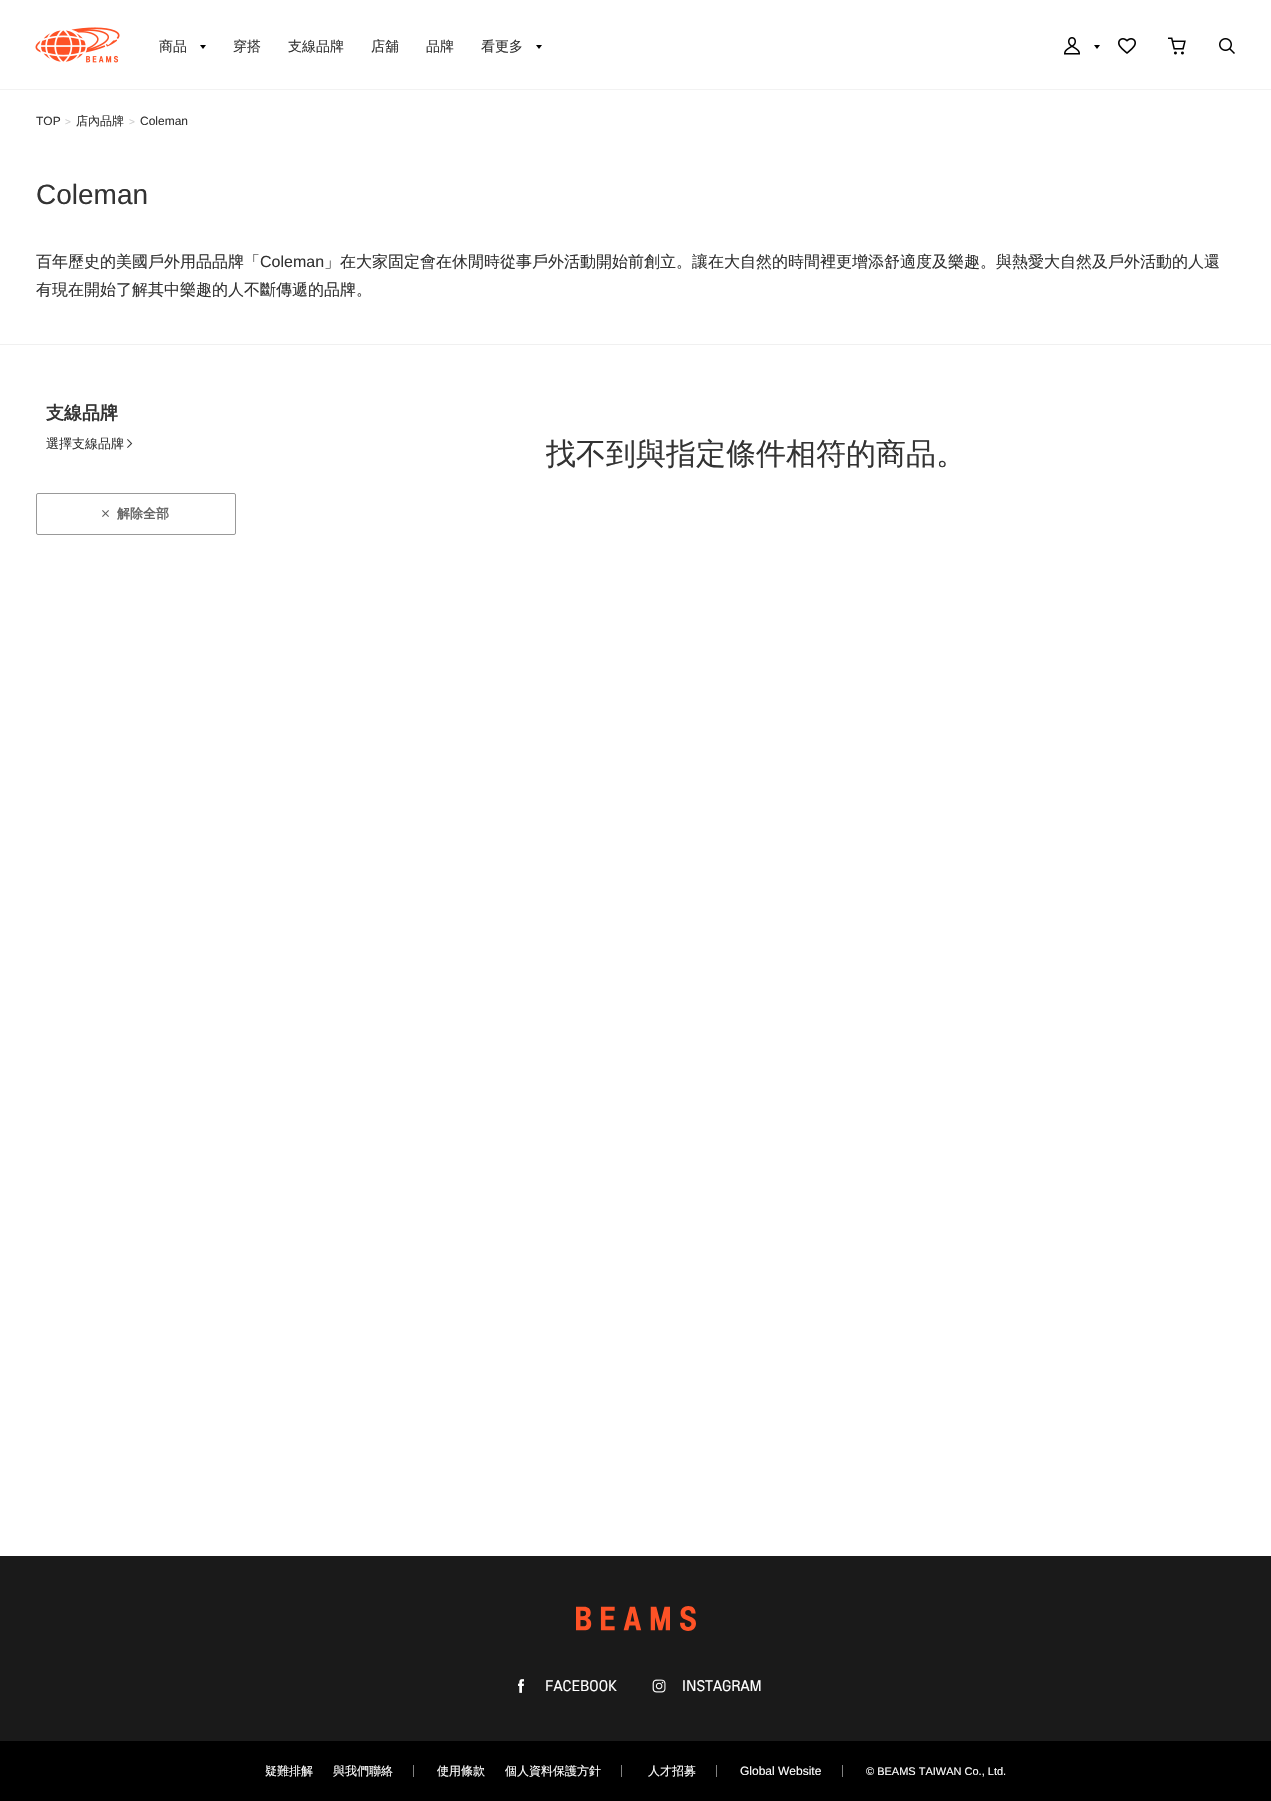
void draw(SkCanvas* canvas) {
  SkPaint paint;
  paint.setAntiAlias(true);
  auto face = [&](const char* family, int weight, float size, bool italic = false) {
    SkFontStyle style(weight, SkFontStyle::kNormal_Width,
      italic ? SkFontStyle::kItalic_Slant : SkFontStyle::kUpright_Slant);
    SkFont result(fontMgr->matchFamilyStyle(family, style), size);
    result.setSubpixel(true);
    return result;
  };
  auto paste = [&](const char* path, float x, float y, float w, float h) {
    auto image = SkImages::DeferredFromEncodedData(SkData::MakeFromFileName(path));
    canvas->drawImageRect(image, SkRect::MakeXYWH(x, y, w, h), SkSamplingOptions());
  };
  auto shape = [&](const char* data, bool evenOdd = false) {
    SkPath result = *SkParsePath::FromSVGString(data);
    if (evenOdd) result.setFillType(SkPathFillType::kEvenOdd);
    return result;
  };
  canvas->clear(0xffffffff);
  paint.setColor(0xfff2f2f2);
  canvas->drawRect(SkRect::MakeXYWH(0, 89, 1271, 1), paint);
  paste("img/1.png", 35, 27, 85, 36);
  paint.setColor(0xff000000);
  canvas->drawPath(shape("M200 45H206L203 49Z"), paint);
  canvas->drawPath(shape("M536 45H542L539 49Z"), paint);
  paste("img/2.png", 1064, 37, 16, 18);
  canvas->drawPath(shape("M1094 45H1100L1097 49Z"), paint);
  paste("img/3.png", 1118, 38, 18, 16);
  paste("img/4.png", 1168, 37, 18, 18);
  paste("img/5.png", 1219, 38, 16, 16);
  paint.setColor(0xfff0f0f0);
  canvas->drawRect(SkRect::MakeXYWH(0, 344, 1271, 1), paint);
  paste("img/6.png", 127, 439, 6, 9);
  paint.setStroke(true);
  paint.setStrokeWidth(1);
  paint.setColor(0xff999999);
  canvas->drawRoundRect(SkRect::MakeXYWH(36.5f, 493.5f, 199, 41), 1.5f, 1.5f, paint);
  paste("img/7.png", 102, 510, 7, 7);
  paint.setStroke(false);
  paint.setColor(0xff1a1a1a);
  canvas->drawRect(SkRect::MakeXYWH(0, 1556, 1271, 185), paint);
  paste("img/8.png", 576, 1606, 120, 25);
  paste("img/9.png", 518, 1679, 6, 14);
  paste("img/10.png", 652, 1679, 14, 14);
  {
    const struct { float x, y, w, h; SkColor color; } items[] = {
      {0, 1741, 1271, 60, 0xff000000},
      {413, 1765, 1, 12, 0xff808080},
      {621, 1765, 1, 12, 0xff808080},
      {716, 1765, 1, 12, 0xff808080},
      {842, 1765, 1, 12, 0xff808080},
    };
    for (auto [x, y, w, h, color] : items) {
      paint.setColor(color);
      canvas->drawRect(SkRect::MakeXYWH(x, y, w, h), paint);
    }
  }
  auto f0 = face("WenQuanYi Zen Hei", 500, 14);
  paint.setColor(0xff333333);
  {
    const struct { const char* s; float x, y; } items[] = {
      {"商品", 159, 51},
      {"穿搭", 233, 51},
      {"支線品牌", 288, 51},
      {"店舖", 371, 51},
      {"品牌", 426, 51},
      {"看更多", 481, 51},
    };
    for (auto [s, x, y] : items) {
      canvas->drawString(s, x, y, f0, paint);
    }
  }
  auto f1 = face("Liberation Sans", 400, 12);
  canvas->drawString("TOP", 36, 125, f1, paint);
  auto f2 = face("Liberation Sans", 400, 10);
  paint.setColor(0xffcccccc);
  canvas->drawString(">", 65, 125, f2, paint);
  auto f3 = face("WenQuanYi Zen Hei", 500, 12);
  paint.setColor(0xff333333);
  canvas->drawString("店內品牌", 76, 125, f3, paint);
  paint.setColor(0xffcccccc);
  canvas->drawString(">", 129, 125, f2, paint);
  paint.setColor(0xff333333);
  canvas->drawString("Coleman", 140, 125, f1, paint);
  auto f4 = face("Liberation Sans", 400, 28);
  canvas->drawString("Coleman", 36, 204, f4, paint);
  auto f5 = face("WenQuanYi Zen Hei", 500, 16);
  canvas->drawString("百年歷史的美國戶外用品品牌「", 36, 267, f5, paint);
  auto f6 = face("Liberation Sans", 400, 16);
  canvas->drawString("Coleman", 260, 267, f6, paint);
  canvas->drawString("」在大家固定會在休閒時從事戶外活動開始前創立。讓在大自然的時間裡更增添舒適度及樂趣。與熱愛大自然及戶外活動的人還", 324, 267, f5, paint);
  canvas->drawString("有現在開始了解其中樂趣的人不斷傳遞的品牌。", 36, 295, f5, paint);
  auto f7 = face("WenQuanYi Zen Hei", 700, 18);
  canvas->drawString("支線品牌", 46, 419, f7, paint);
  auto f8 = face("WenQuanYi Zen Hei", 500, 13);
  canvas->drawString("選擇支線品牌", 46, 448, f8, paint);
  auto f9 = face("WenQuanYi Zen Hei", 700, 13);
  paint.setColor(0xff666666);
  canvas->drawString("解除全部", 117, 518, f9, paint);
  auto f10 = face("WenQuanYi Zen Hei", 500, 30);
  paint.setColor(0xff333333);
  canvas->drawString("找不到與指定條件相符的商品。", 546, 464, f10, paint);
  auto f11 = face("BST", 400, 15);
  paint.setColor(0xffffffff);
  canvas->drawString("FACEBOOK", 545, 1691, f11, paint);
  canvas->drawString("INSTAGRAM", 682, 1691, f11, paint);
  {
    const struct { const char* s; float x, y; } items[] = {
      {"疑難排解", 265, 1775},
      {"與我們聯絡", 333, 1775},
      {"使用條款", 437, 1775},
      {"個人資料保護方針", 505, 1775},
      {"人才招募", 648, 1775},
    };
    for (auto [s, x, y] : items) {
      canvas->drawString(s, x, y, f3, paint);
    }
  }
  canvas->drawString("Global Website", 740, 1775, f1, paint);
  auto f12 = face("Liberation Sans", 400, 11);
  canvas->drawString("© BEAMS TAIWAN Co., Ltd.", 866, 1775, f12, paint);
}
